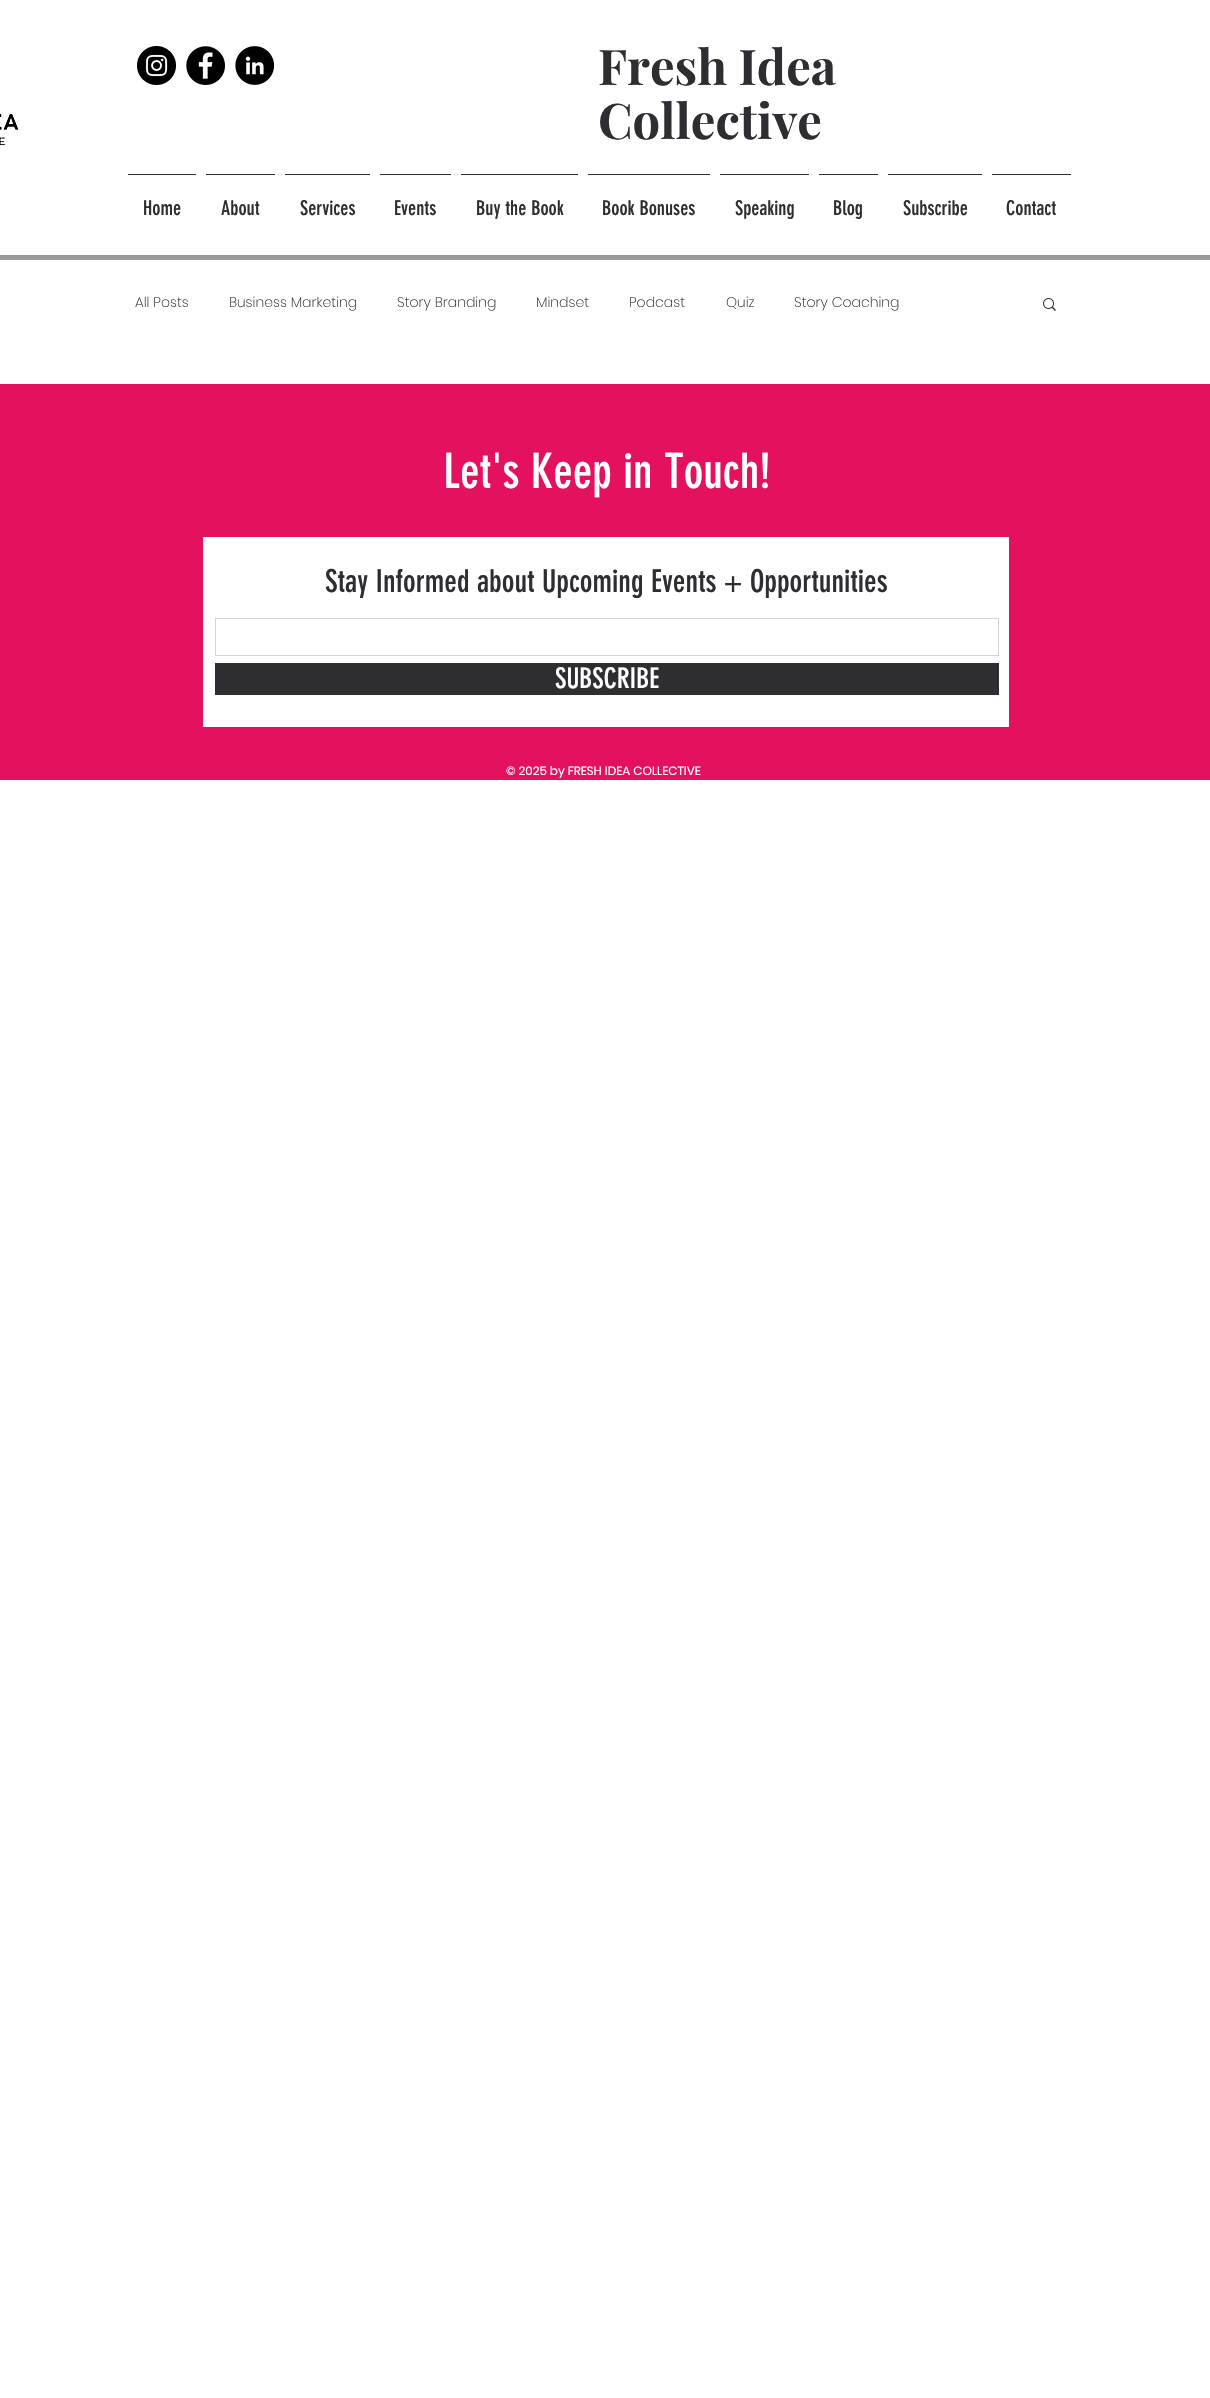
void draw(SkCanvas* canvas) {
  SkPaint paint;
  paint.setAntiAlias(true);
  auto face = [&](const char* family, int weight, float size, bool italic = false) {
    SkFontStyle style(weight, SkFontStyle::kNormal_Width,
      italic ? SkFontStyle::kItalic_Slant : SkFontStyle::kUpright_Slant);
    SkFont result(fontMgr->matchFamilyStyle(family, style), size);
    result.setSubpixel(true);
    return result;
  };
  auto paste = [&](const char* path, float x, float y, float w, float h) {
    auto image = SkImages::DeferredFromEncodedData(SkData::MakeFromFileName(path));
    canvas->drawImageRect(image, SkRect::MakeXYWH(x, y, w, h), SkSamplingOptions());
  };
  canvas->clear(0xffffffff);
  paste("img/1.png", 0, 114, 19, 31);
  paste("img/2.png", 137, 46, 39, 39);
  paste("img/3.png", 186, 46, 39, 39);
  paste("img/4.png", 235, 46, 39, 39);
  {
    const struct { float x, y, w, h; SkColor color; } items[] = {
      {128, 174, 68, 1, 0xff2e2d32},
      {206, 174, 69, 1, 0xff2e2d32},
      {285, 174, 85, 1, 0xff2e2d32},
      {380, 174, 71, 1, 0xff2e2d32},
      {461, 174, 117, 1, 0xff2e2d32},
      {588, 174, 122, 1, 0xff2e2d32},
      {720, 174, 89, 1, 0xff2e2d32},
      {819, 174, 59, 1, 0xff2e2d32},
      {888, 174, 94, 1, 0xff2e2d32},
      {992, 174, 79, 1, 0xff2e2d32},
      {0, 255, 1210, 5, 0xff999999},
    };
    for (auto [x, y, w, h, color] : items) {
      paint.setColor(color);
      canvas->drawRect(SkRect::MakeXYWH(x, y, w, h), paint);
    }
  }
  paste("img/5.png", 1043, 298, 13, 13);
  paint.setColor(0xffe4115e);
  canvas->drawRect(SkRect::MakeXYWH(0, 384, 1210, 396), paint);
  paint.setColor(0xffffffff);
  canvas->drawRect(SkRect::MakeXYWH(203, 537, 806, 190), paint);
  paint.setStroke(true);
  paint.setStrokeWidth(1);
  paint.setColor(0xffd4d4d4);
  canvas->drawRect(SkRect::MakeXYWH(215.5f, 618.5f, 783, 37), paint);
  paint.setStroke(false);
  paint.setColor(0xff2e2d32);
  canvas->drawRect(SkRect::MakeXYWH(215, 663, 784, 32), paint);
  auto f0 = face("Playfair Display", 700, 49);
  canvas->drawString("Fresh Idea", 598, 85, f0, paint);
  canvas->drawString("Collective", 598, 139, f0, paint);
  auto f1 = face("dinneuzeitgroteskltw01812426", 400, 20);
  {
    const struct { const char* s; float x, y; } items[] = {
      {"Home", 143, 215},
      {"About", 221, 215},
      {"Services", 300, 215},
      {"Events", 394, 215},
      {"Buy the Book", 476, 215},
      {"Book Bonuses", 602, 215},
      {"Speaking", 735, 215},
      {"Blog", 833, 215},
      {"Subscribe", 903, 215},
      {"Contact", 1006, 215},
    };
    for (auto [s, x, y] : items) {
      canvas->drawString(s, x, y, f1, paint);
    }
  }
  auto f2 = face("Poppins", 200, 14);
  {
    const struct { const char* s; float x, y; } items[] = {
      {"All Posts", 135, 307},
      {"Business Marketing", 229, 307},
      {"Story Branding", 397, 307},
      {"Mindset", 536, 307},
      {"Podcast", 629, 307},
      {"Quiz", 726, 307},
      {"Story Coaching", 794, 307},
    };
    for (auto [s, x, y] : items) {
      canvas->drawString(s, x, y, f2, paint);
    }
  }
  auto f3 = face("dinneuzeitgroteskltw01812426", 400, 48);
  paint.setColor(0xffffffff);
  canvas->drawString("Let's Keep in Touch!", 443, 488, f3, paint);
  auto f4 = face("dinneuzeitgroteskltw01812426", 400, 31);
  paint.setColor(0xff2e2d32);
  canvas->drawString("Stay Informed about Upcoming Events + Opportunities", 325, 592, f4, paint);
  auto f5 = face("dinneuzeitgroteskltw01812426", 400, 28);
  paint.setColor(0xffffffff);
  canvas->drawString("SUBSCRIBE", 555, 688, f5, paint);
  auto f6 = face("Poppins", 400, 12);
  canvas->drawString("© 2025 by FRESH IDEA COLLECTIVE", 506, 775, f6, paint);
}
